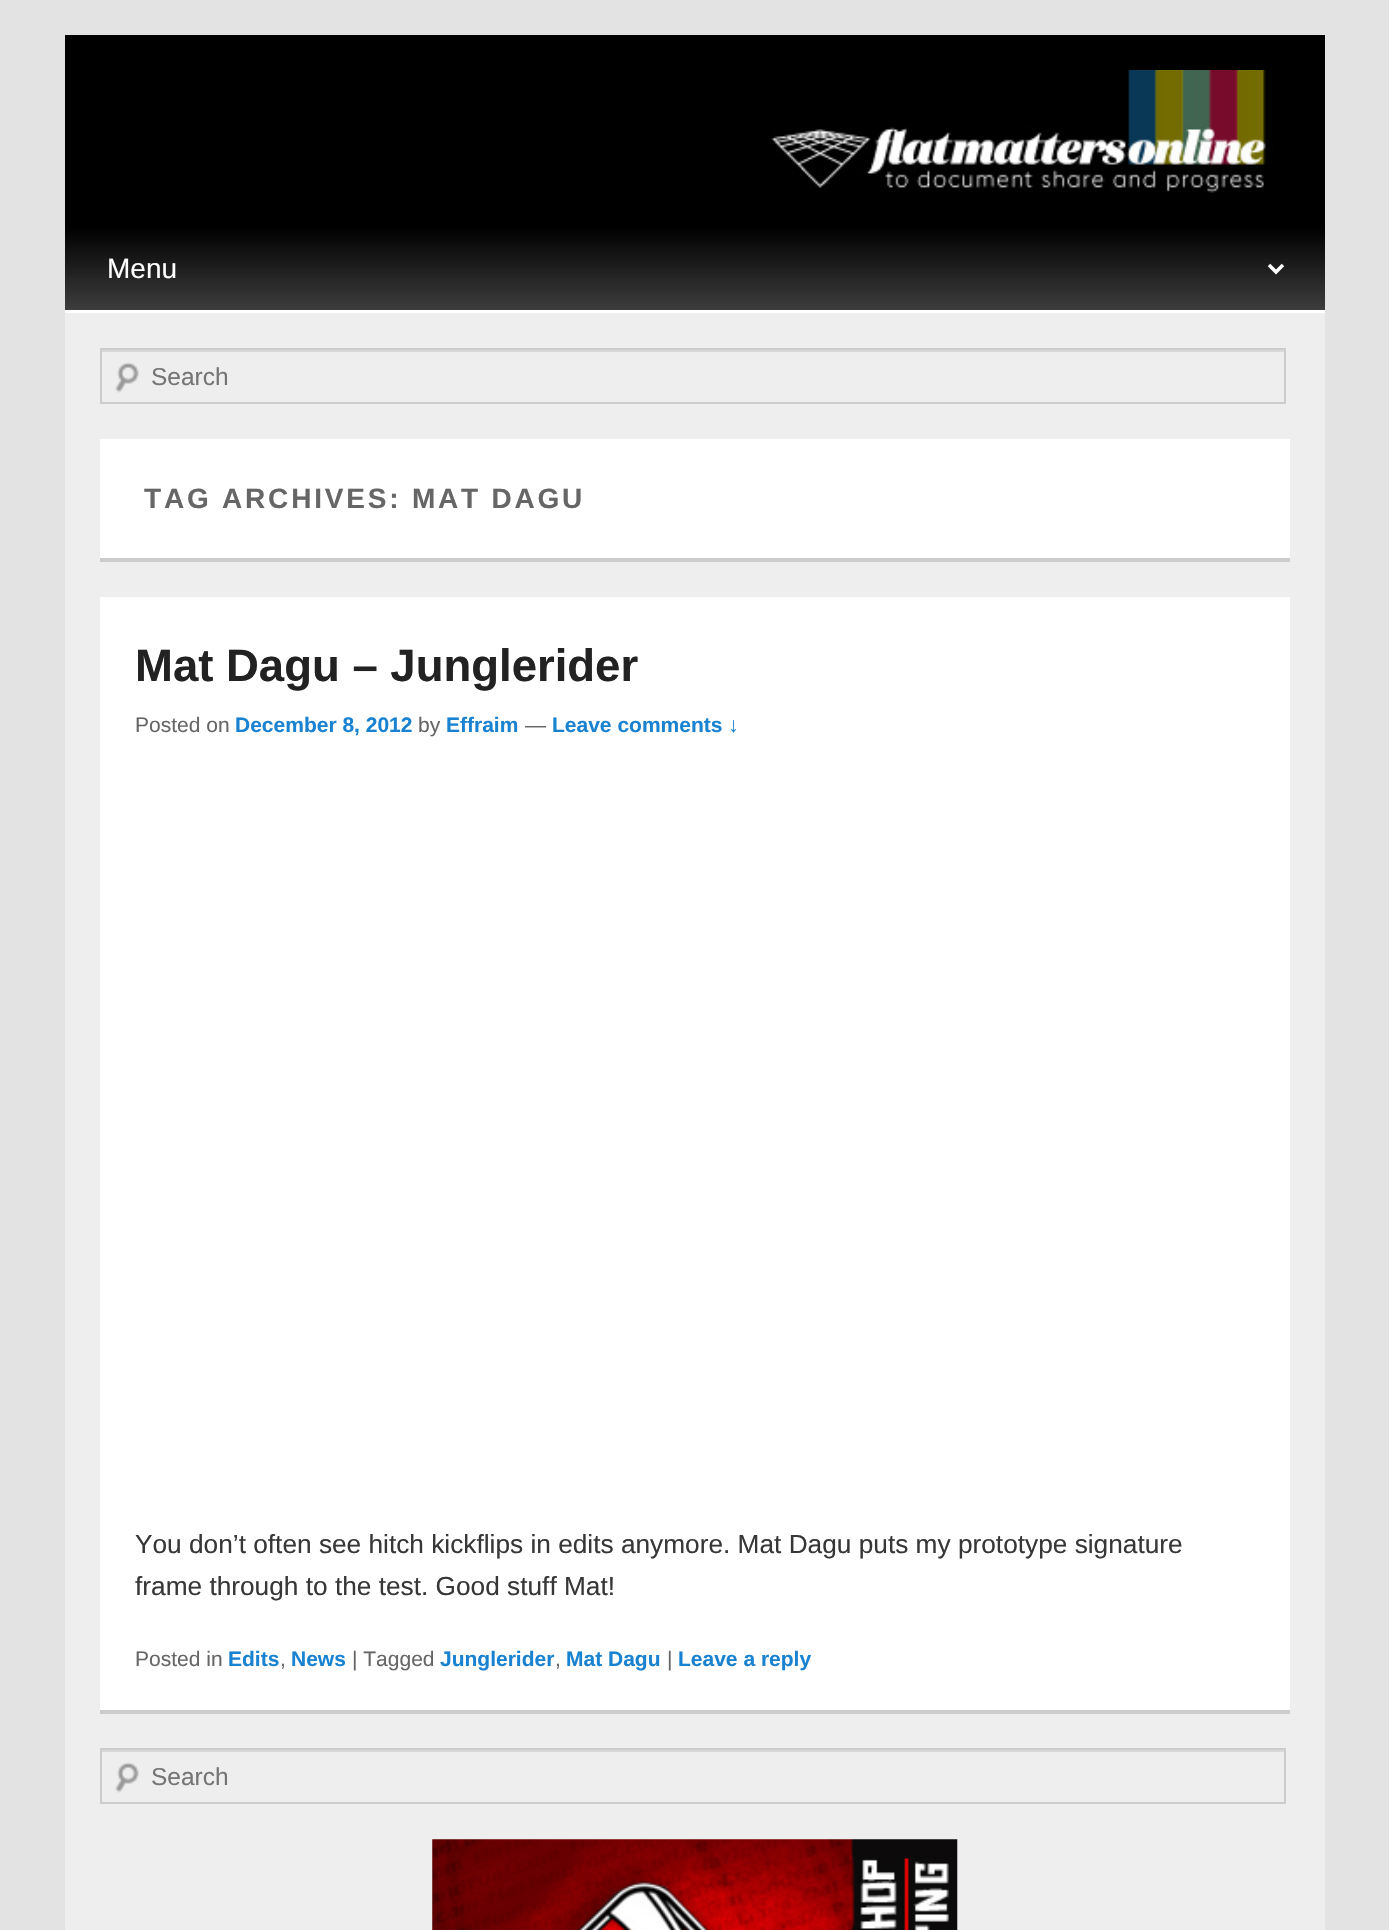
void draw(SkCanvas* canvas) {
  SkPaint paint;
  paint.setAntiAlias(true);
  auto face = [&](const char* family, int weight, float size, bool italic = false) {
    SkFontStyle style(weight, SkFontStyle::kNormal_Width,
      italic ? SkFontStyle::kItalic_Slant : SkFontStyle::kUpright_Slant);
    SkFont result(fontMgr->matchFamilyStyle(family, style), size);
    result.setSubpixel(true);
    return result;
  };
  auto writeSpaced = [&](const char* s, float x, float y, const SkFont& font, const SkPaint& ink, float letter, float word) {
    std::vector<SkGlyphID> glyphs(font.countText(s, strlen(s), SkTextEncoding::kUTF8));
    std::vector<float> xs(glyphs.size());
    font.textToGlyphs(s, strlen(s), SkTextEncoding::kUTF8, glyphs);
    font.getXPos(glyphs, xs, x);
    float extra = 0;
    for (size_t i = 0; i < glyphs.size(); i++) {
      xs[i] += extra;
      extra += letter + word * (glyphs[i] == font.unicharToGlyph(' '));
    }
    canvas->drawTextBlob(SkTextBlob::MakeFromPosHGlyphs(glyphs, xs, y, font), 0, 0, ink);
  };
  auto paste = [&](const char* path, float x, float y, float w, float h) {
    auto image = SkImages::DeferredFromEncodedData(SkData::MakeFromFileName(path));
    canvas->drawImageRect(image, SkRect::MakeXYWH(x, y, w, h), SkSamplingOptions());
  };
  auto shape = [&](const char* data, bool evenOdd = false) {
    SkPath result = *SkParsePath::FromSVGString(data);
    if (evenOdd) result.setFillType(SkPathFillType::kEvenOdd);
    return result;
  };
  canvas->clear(0xffe3e3e3);
  paint.setColor(0xffffffff);
  canvas->drawRect(SkRect::MakeXYWH(65, 310, 1260, 3), paint);
  paint.setColor(0xff000000);
  canvas->drawRect(SkRect::MakeXYWH(65, 35, 1260, 193), paint);
  paste("img/1.png", 771, 70, 502, 123);
  {
    const SkColor colors[] = {0xff000000, 0xff3d3d3d};
    const float stops[] = {0, 1};
    const SkPoint ends[] = {{695, 227}, {695, 310}};
    paint.setShader(SkGradientShader::MakeLinear(ends, colors, stops, 2, SkTileMode::kClamp));
    paint.setAlpha(255);
  }
  canvas->drawRect(SkRect::MakeXYWH(65, 228, 1260, 82), paint);
  paint.setStroke(true);
  paint.setStrokeWidth(3.5f);
  paint.setShader(nullptr);
  paint.setColor(0xffffffff);
  canvas->drawPath(shape("M1269 265L1276 272L1283 265"), paint);
  paint.setStroke(false);
  paint.setColor(0xffeeeeee);
  canvas->drawRect(SkRect::MakeXYWH(65, 313, 1260, 1617), paint);
  paste("img/2.png", 115, 362, 24, 31);
  paint.setColor(0xffd8d8d8);
  canvas->drawRect(SkRect::MakeXYWH(102, 350, 1183, 2), paint);
  paint.setStroke(true);
  paint.setStrokeWidth(2);
  paint.setColor(0xffcccccc);
  canvas->drawRect(SkRect::MakeXYWH(101, 349, 1184, 54), paint);
  paint.setStroke(false);
  {
    const struct { float x, y, w, h; SkColor color; } items[] = {
      {100, 439, 1190, 119, 0xffffffff},
      {100, 558, 1190, 4, 0xffcccccc},
      {100, 597, 1190, 1113, 0xffffffff},
      {100, 1710, 1190, 4, 0xffcccccc},
    };
    for (auto [x, y, w, h, color] : items) {
      paint.setColor(color);
      canvas->drawRect(SkRect::MakeXYWH(x, y, w, h), paint);
    }
  }
  paste("img/2.png", 115, 1762, 24, 31);
  paint.setColor(0xffd8d8d8);
  canvas->drawRect(SkRect::MakeXYWH(102, 1750, 1183, 2), paint);
  paint.setStroke(true);
  paint.setColor(0xffcccccc);
  canvas->drawRect(SkRect::MakeXYWH(101, 1749, 1184, 54), paint);
  paste("img/3.png", 432, 1839, 526, 91);
  auto f0 = face("Liberation Sans", 400, 28);
  paint.setStroke(false);
  paint.setColor(0xffffffff);
  canvas->drawString("Menu", 107, 278, f0, paint);
  auto f1 = face("Liberation Sans", 400, 24.5f);
  paint.setColor(0xff757575);
  canvas->drawString("Search", 151, 385, f1, paint);
  auto f2 = face("Liberation Sans", 700, 28);
  paint.setColor(0xff666666);
  writeSpaced("TAG ARCHIVES: MAT DAGU", 144, 508, f2, paint, 2.8f, 0);
  auto f3 = face("Liberation Sans", 700, 45.5f);
  paint.setColor(0xff222222);
  canvas->drawString("Mat Dagu – Junglerider", 135, 681, f3, paint);
  auto f4 = face("Liberation Sans", 400, 21);
  paint.setColor(0xff666666);
  canvas->drawString("Posted on", 135, 732, f4, paint);
  auto f5 = face("Liberation Sans", 700, 21);
  paint.setColor(0xff1982d1);
  canvas->drawString("December 8, 2012", 235, 732, f5, paint);
  paint.setColor(0xff666666);
  canvas->drawString("by", 418, 732, f4, paint);
  paint.setColor(0xff1982d1);
  canvas->drawString("Effraim", 446, 732, f5, paint);
  paint.setColor(0xff666666);
  canvas->drawString("—", 525, 732, f4, paint);
  paint.setColor(0xff1982d1);
  canvas->drawString("Leave comments ↓", 552, 732, f5, paint);
  auto f6 = face("Liberation Sans", 400, 26.25f);
  paint.setColor(0xff373737);
  canvas->drawString("You don’t often see hitch kickflips in edits anymore. Mat Dagu puts my prototype signature", 135, 1553, f6, paint);
  canvas->drawString("frame through to the test. Good stuff Mat!", 135, 1595, f6, paint);
  paint.setColor(0xff666666);
  canvas->drawString("Posted in", 135, 1666, f4, paint);
  paint.setColor(0xff1982d1);
  canvas->drawString("Edits", 228, 1666, f5, paint);
  paint.setColor(0xff666666);
  canvas->drawString(",", 280, 1666, f4, paint);
  paint.setColor(0xff1982d1);
  canvas->drawString("News", 291, 1666, f5, paint);
  paint.setColor(0xff666666);
  canvas->drawString("| Tagged", 352, 1666, f4, paint);
  paint.setColor(0xff1982d1);
  canvas->drawString("Junglerider", 440, 1666, f5, paint);
  paint.setColor(0xff666666);
  canvas->drawString(",", 555, 1666, f4, paint);
  paint.setColor(0xff1982d1);
  canvas->drawString("Mat Dagu", 566, 1666, f5, paint);
  paint.setColor(0xff666666);
  canvas->drawString("|", 667, 1666, f4, paint);
  paint.setColor(0xff1982d1);
  canvas->drawString("Leave a reply", 678, 1666, f5, paint);
  paint.setColor(0xff757575);
  canvas->drawString("Search", 151, 1785, f1, paint);
}
